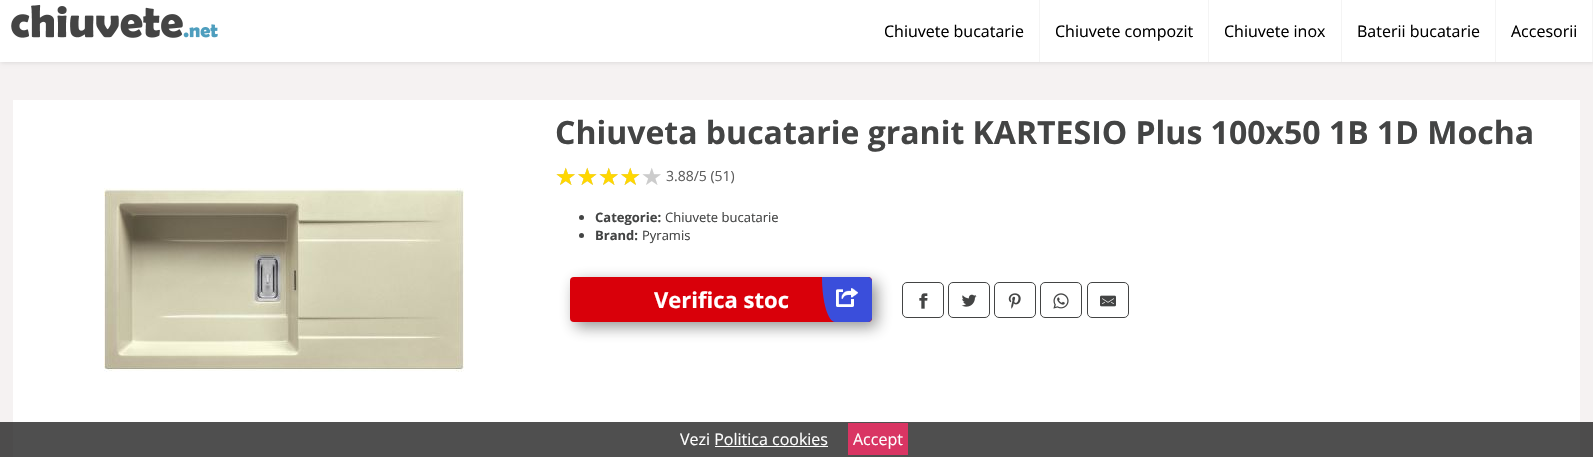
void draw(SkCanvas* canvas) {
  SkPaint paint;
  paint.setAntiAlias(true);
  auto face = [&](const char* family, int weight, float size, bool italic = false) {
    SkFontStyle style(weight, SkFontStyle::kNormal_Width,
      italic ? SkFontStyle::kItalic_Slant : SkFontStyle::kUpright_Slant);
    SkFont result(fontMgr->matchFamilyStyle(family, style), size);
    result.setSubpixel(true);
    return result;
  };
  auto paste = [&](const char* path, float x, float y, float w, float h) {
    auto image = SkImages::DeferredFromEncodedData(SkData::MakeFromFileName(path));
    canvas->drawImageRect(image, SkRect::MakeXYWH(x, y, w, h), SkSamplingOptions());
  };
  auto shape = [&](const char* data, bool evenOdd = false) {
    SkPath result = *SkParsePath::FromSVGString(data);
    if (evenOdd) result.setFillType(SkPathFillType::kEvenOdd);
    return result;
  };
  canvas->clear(0xfff5f2f2);
  paint.setColor(0xff4d4c4c);
  canvas->drawRect(SkRect::MakeXYWH(0, 422, 1593, 35), paint);
  paint.setColor(0x1a000000);
  paint.setMaskFilter(SkMaskFilter::MakeBlur(kNormal_SkBlurStyle, 2));
  canvas->drawRect(SkRect::MakeXYWH(1, 1, 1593, 62), paint);
  paint.setMaskFilter(nullptr);
  paint.setColor(0xffffffff);
  canvas->drawRect(SkRect::MakeXYWH(0, 0, 1592, 62), paint);
  paste("img/1.png", 11, 4, 207, 34);
  {
    const struct { float x, y, w, h; SkColor color; } items[] = {
      {1039, 0, 1, 62, 0xfff4f4f4},
      {1208, 0, 1, 62, 0xfff4f4f4},
      {1341, 0, 1, 62, 0xfff4f4f4},
      {1495, 0, 1, 62, 0xfff4f4f4},
      {1592, 0, 1, 62, 0xfff4f4f4},
      {13, 100, 1567, 322, 0xffffffff},
      {13, 422, 1567, 35, 0xff4f4f4f},
    };
    for (auto [x, y, w, h, color] : items) {
      paint.setColor(color);
      canvas->drawRect(SkRect::MakeXYWH(x, y, w, h), paint);
    }
  }
  paste("img/2.png", 104, 188, 360, 184);
  paint.setColor(0xff434444);
  canvas->drawCircle(581.5f, 217.5f, 2.5f, paint);
  canvas->drawCircle(581.5f, 235.5f, 2.5f, paint);
  paint.setColor(0x80272727);
  paint.setMaskFilter(SkMaskFilter::MakeBlur(kNormal_SkBlurStyle, 7.5f));
  canvas->drawRoundRect(SkRect::MakeXYWH(575, 282, 302, 45), 4, 4, paint);
  paint.setMaskFilter(nullptr);
  paint.setColor(0xffd9000a);
  canvas->drawRoundRect(SkRect::MakeXYWH(570, 277, 302, 45), 4, 4, paint);
  paint.setColor(0xff3a4edb);
  canvas->drawPath(shape("M822 277H868C870 277 872 279 872 281V318C872 320 870 322 868 322H835C828 322 822 302 822 277Z"), paint);
  paste("img/3.png", 836, 288, 22, 19);
  paint.setStroke(true);
  paint.setStrokeWidth(1);
  paint.setColor(0xff434444);
  canvas->drawRoundRect(SkRect::MakeXYWH(902.5f, 282.5f, 41, 35), 4.5f, 4.5f, paint);
  paste("img/4.png", 919, 293, 9, 16);
  canvas->drawRoundRect(SkRect::MakeXYWH(948.5f, 282.5f, 41, 35), 4.5f, 4.5f, paint);
  paste("img/5.png", 961, 294, 16, 13);
  canvas->drawRoundRect(SkRect::MakeXYWH(994.5f, 282.5f, 41, 35), 4.5f, 4.5f, paint);
  paste("img/6.png", 1008, 293, 13, 16);
  canvas->drawRoundRect(SkRect::MakeXYWH(1040.5f, 282.5f, 41, 35), 4.5f, 4.5f, paint);
  paste("img/7.png", 1053, 293, 16, 16);
  canvas->drawRoundRect(SkRect::MakeXYWH(1087.5f, 282.5f, 41, 35), 4.5f, 4.5f, paint);
  paste("img/8.png", 1100, 295, 16, 12);
  paint.setStroke(false);
  paint.setColor(0xffffffff);
  canvas->drawRect(SkRect::MakeXYWH(715, 446, 113, 1), paint);
  paint.setColor(0xffd93563);
  canvas->drawRect(SkRect::MakeXYWH(848, 423, 60, 32), paint);
  auto f0 = face("Open Sans", 400, 16);
  paint.setColor(0xff000000);
  {
    const struct { const char* s; float x, y; } items[] = {
      {"Chiuvete bucatarie", 884, 37},
      {"Chiuvete compozit", 1055, 37},
      {"Chiuvete inox", 1224, 37},
      {"Baterii bucatarie", 1357, 37},
      {"Accesorii", 1511, 37},
    };
    for (auto [s, x, y] : items) {
      canvas->drawString(s, x, y, f0, paint);
    }
  }
  auto f1 = face("Open Sans", 700, 32);
  paint.setColor(0xff434444);
  canvas->drawString("Chiuveta bucatarie granit KARTESIO Plus 100x50 1B 1D Mocha", 555, 144, f1, paint);
  auto f2 = face("DejaVu Sans", 400, 24);
  paint.setColor(0xffcccccc);
  canvas->drawString("★★★★★", 555, 185, f2, paint);
  paint.setColor(0xffffd700);
  canvas->drawString("★★★★", 555, 185, f2, paint);
  auto f3 = face("Open Sans", 400, 14);
  paint.setColor(0xff5d5d5d);
  canvas->drawString("3.88/5 (51)", 666, 181, f3, paint);
  auto f4 = face("Open Sans", 700, 13);
  paint.setColor(0xff434444);
  canvas->drawString("Categorie:", 595, 222, f4, paint);
  auto f5 = face("Open Sans", 400, 13);
  canvas->drawString("Chiuvete bucatarie", 665, 222, f5, paint);
  canvas->drawString("Brand:", 595, 240, f4, paint);
  canvas->drawString("Pyramis", 642, 240, f5, paint);
  auto f6 = face("Open Sans", 700, 22);
  paint.setColor(0xffffffff);
  canvas->drawString("Verifica stoc", 654, 308, f6, paint);
  canvas->drawString("Vezi Politica cookies", 680, 445, f0, paint);
  canvas->drawString("Accept", 853, 445, f0, paint);
}
